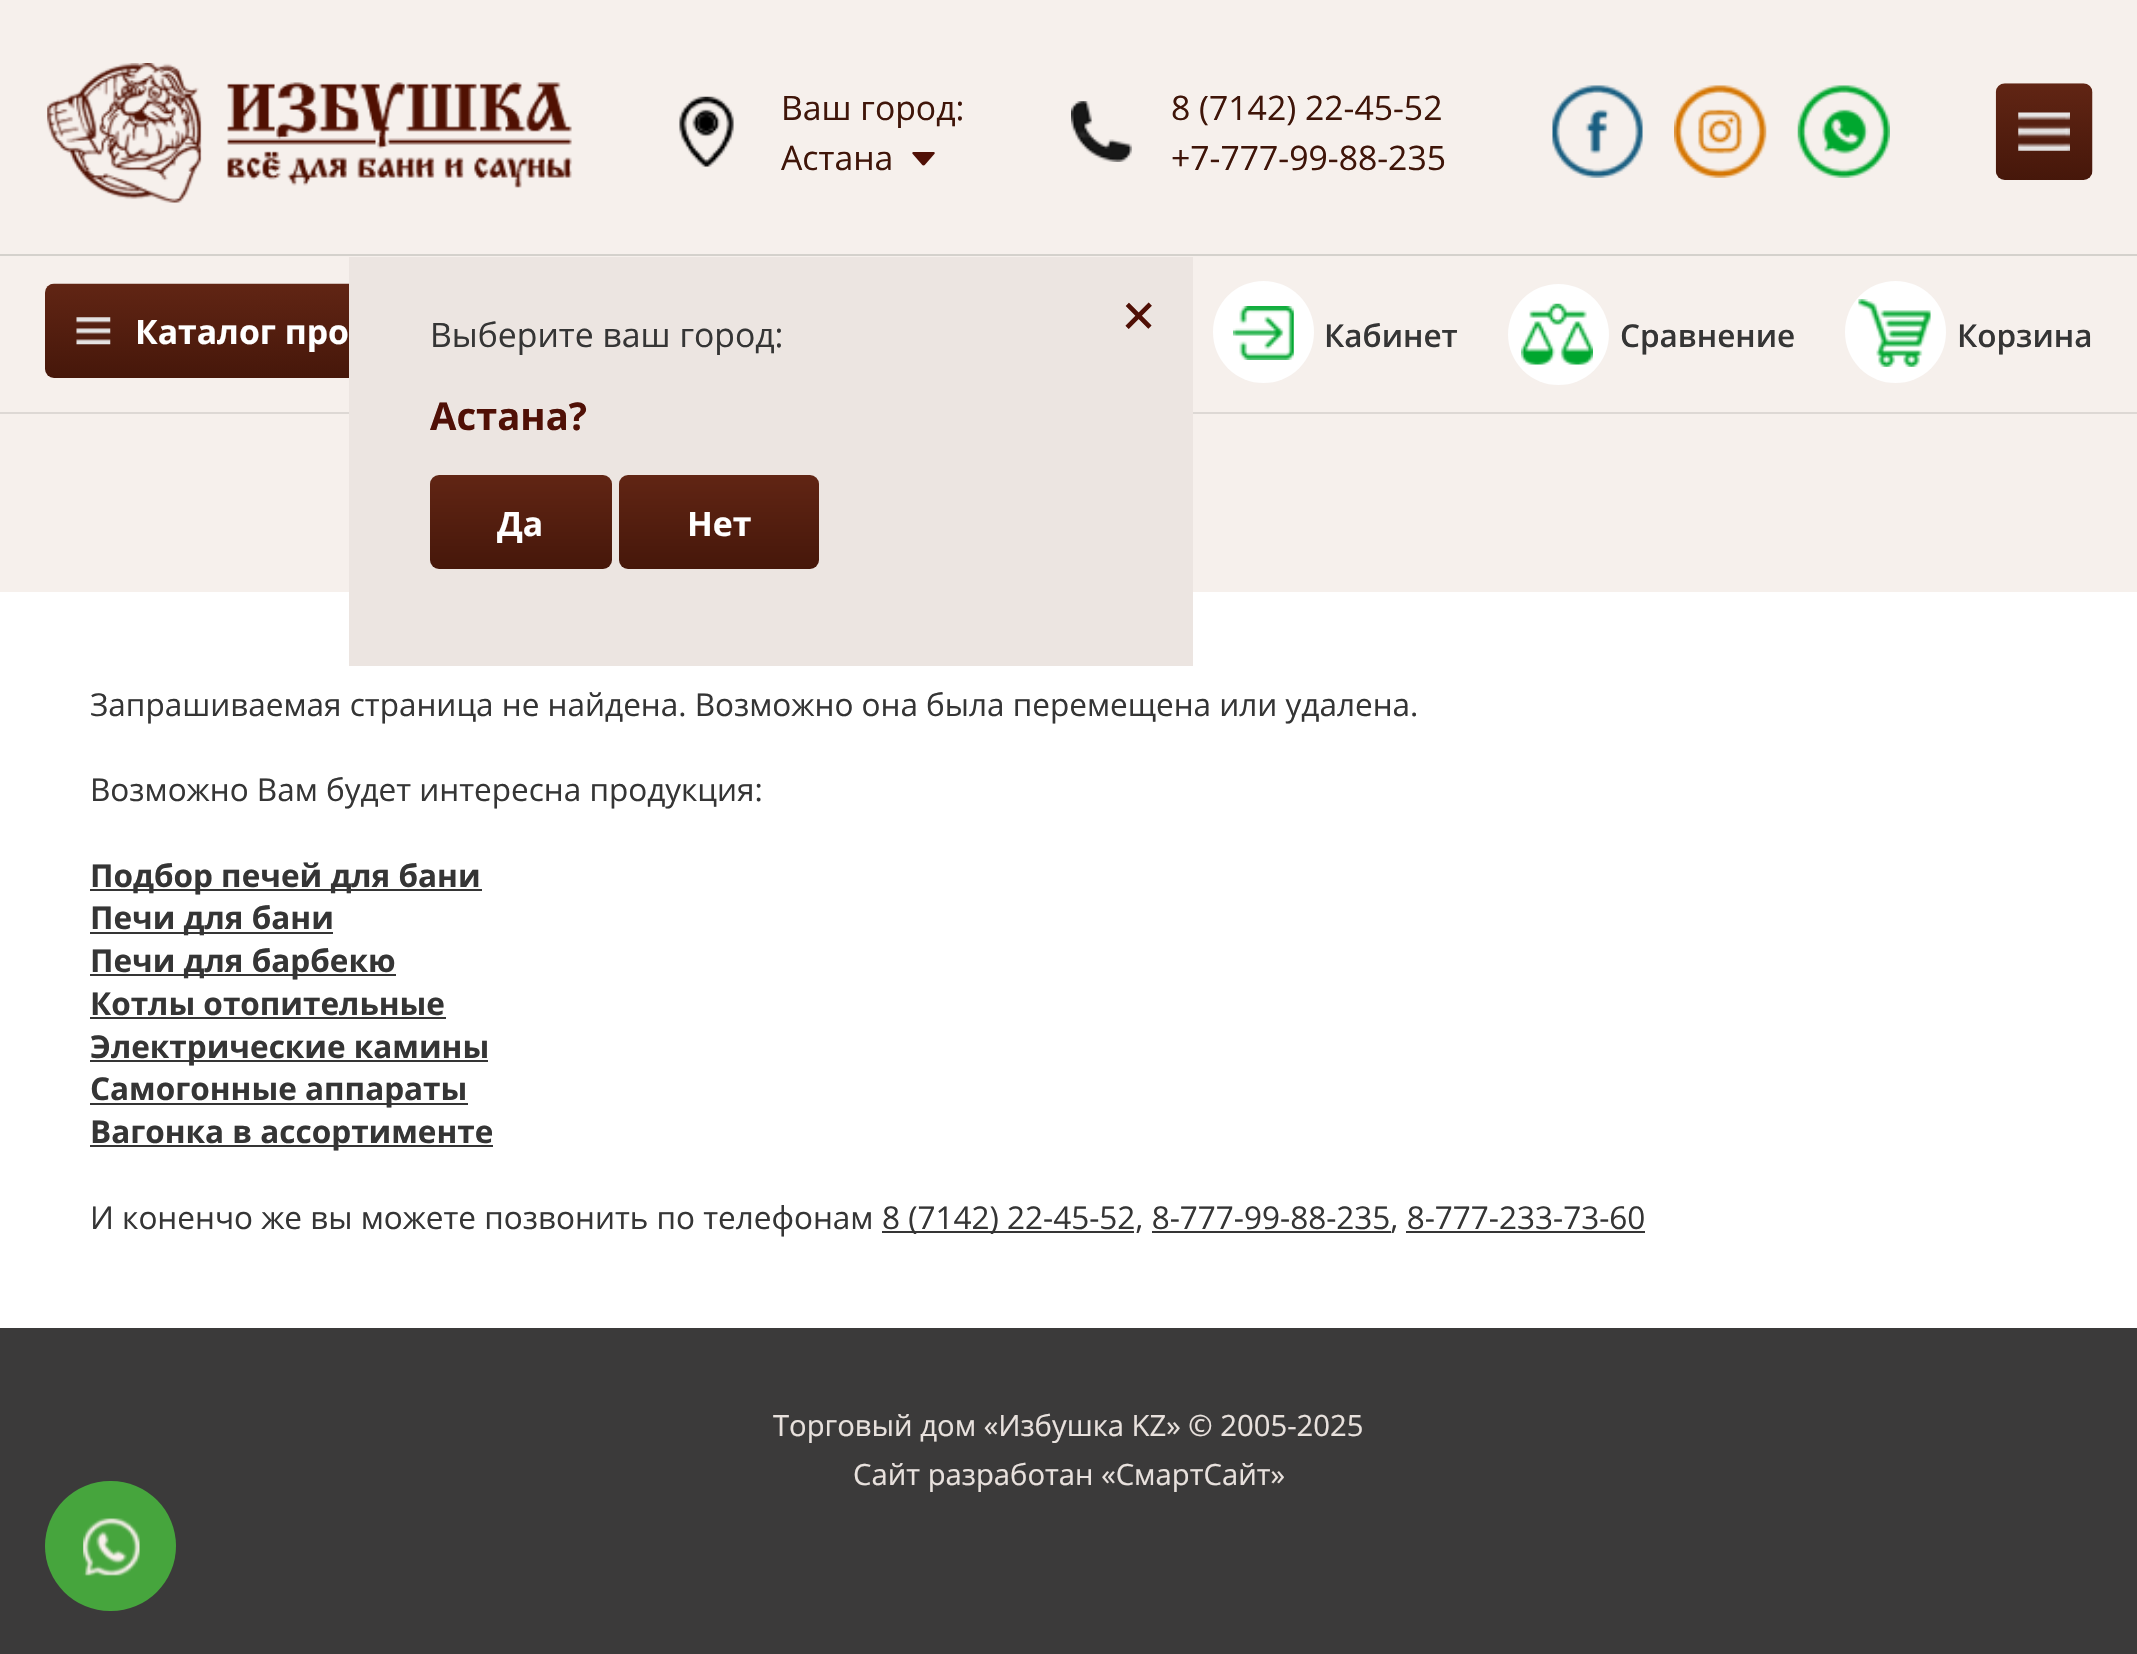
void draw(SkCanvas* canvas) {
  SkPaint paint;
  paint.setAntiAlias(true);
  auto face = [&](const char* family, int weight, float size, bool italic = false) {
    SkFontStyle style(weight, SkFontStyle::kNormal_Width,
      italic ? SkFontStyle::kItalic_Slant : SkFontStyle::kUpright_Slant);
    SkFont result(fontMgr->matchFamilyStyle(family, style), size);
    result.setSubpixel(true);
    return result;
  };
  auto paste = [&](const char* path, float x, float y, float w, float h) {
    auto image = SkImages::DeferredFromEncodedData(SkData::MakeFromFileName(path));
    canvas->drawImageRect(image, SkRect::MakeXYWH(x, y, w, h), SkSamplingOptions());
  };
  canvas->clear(0xfff6f0ec);
  paint.setColor(0xffd4d1cc);
  canvas->drawRect(SkRect::MakeXYWH(0, 254, 2137, 2), paint);
  paste("img/1.png", 47, 63, 525, 140);
  paste("img/2.png", 679, 96, 55, 71);
  paste("img/3.png", 912, 152, 23, 14);
  paste("img/4.png", 1071, 101, 61, 61);
  paste("img/5.png", 1552, 85, 91, 93);
  paste("img/6.png", 1674, 85, 93, 93);
  paste("img/7.png", 1797, 85, 93, 93);
  paste("img/8.png", 1995, 83, 98, 97);
  {
    const struct { float x, y, w, h; SkColor color; } items[] = {
      {0, 412, 2137, 2, 0xffddd8d4},
      {0, 592, 2137, 736, 0xffffffff},
      {349, 257, 844, 409, 0xffece5e1},
    };
    for (auto [x, y, w, h, color] : items) {
      paint.setColor(color);
      canvas->drawRect(SkRect::MakeXYWH(x, y, w, h), paint);
    }
  }
  {
    const SkColor colors[] = {0xff612514, 0xff46170a};
    const float stops[] = {0, 1};
    const SkPoint ends[] = {{521, 475}, {521, 569}};
    paint.setShader(SkGradientShader::MakeLinear(ends, colors, stops, 2, SkTileMode::kClamp));
    paint.setAlpha(255);
  }
  canvas->drawRoundRect(SkRect::MakeXYWH(430, 475, 182, 94), 9, 9, paint);
  {
    const SkColor colors[] = {0xff612514, 0xff46170a};
    const float stops[] = {0, 1};
    const SkPoint ends[] = {{719, 475}, {719, 569}};
    paint.setShader(SkGradientShader::MakeLinear(ends, colors, stops, 2, SkTileMode::kClamp));
    paint.setAlpha(255);
  }
  canvas->drawRoundRect(SkRect::MakeXYWH(619, 475, 200, 94), 9, 9, paint);
  paste("img/9.png", 45, 283, 304, 95);
  paint.setShader(nullptr);
  paint.setColor(0xffffffff);
  canvas->drawRoundRect(SkRect::MakeXYWH(1213, 281, 101, 102), 50.5f, 50.5f, paint);
  paste("img/10.png", 1233, 306, 61, 54);
  canvas->drawCircle(1558.5f, 334.5f, 50.5f, paint);
  paste("img/11.png", 1521, 303, 72, 62);
  canvas->drawRoundRect(SkRect::MakeXYWH(1845, 281, 101, 102), 50.5f, 50.5f, paint);
  paste("img/12.png", 1858, 299, 73, 68);
  {
    const struct { float x, y, w, h; SkColor color; } items[] = {
      {90, 889, 392, 2, 0xff353535},
      {90, 932, 243, 2, 0xff353535},
      {90, 974, 306, 2, 0xff353535},
      {90, 1017, 356, 2, 0xff353535},
      {90, 1060, 398, 2, 0xff353535},
      {90, 1103, 378, 2, 0xff353535},
      {90, 1145, 403, 2, 0xff353535},
      {882, 1231, 252, 2, 0xff353535},
      {1152, 1231, 239, 2, 0xff353535},
      {1406, 1231, 239, 2, 0xff353535},
      {0, 1328, 2137, 326, 0xff3b3a3a},
    };
    for (auto [x, y, w, h, color] : items) {
      paint.setColor(color);
      canvas->drawRect(SkRect::MakeXYWH(x, y, w, h), paint);
    }
  }
  paint.setColor(0xff46a53d);
  canvas->drawRoundRect(SkRect::MakeXYWH(45, 1481, 131, 130), 65, 65, paint);
  paste("img/13.png", 83, 1518, 57, 58);
  auto f0 = face("Open Sans", 400, 33.75f);
  paint.setColor(0xff3f1509);
  {
    const struct { const char* s; float x, y; } items[] = {
      {"Ваш город:", 781, 120},
      {"Астана", 781, 170},
      {"8 (7142) 22-45-52", 1171, 120},
      {"+7-777-99-88-235", 1171, 170},
    };
    for (auto [s, x, y] : items) {
      canvas->drawString(s, x, y, f0, paint);
    }
  }
  auto f1 = face("Open Sans", 400, 68);
  paint.setColor(0xff501006);
  canvas->save();
  canvas->rotate(45, 1108, 319);
  canvas->drawString("+", 1108, 319, f1, paint);
  canvas->restore();
  paint.setColor(0xff353535);
  canvas->drawString("Выберите ваш город:", 430, 347, f0, paint);
  auto f2 = face("Open Sans", 700, 38.25f);
  paint.setColor(0xff501006);
  canvas->drawString("Астана?", 430, 430, f2, paint);
  auto f3 = face("Open Sans", 700, 33.75f);
  paint.setColor(0xffffffff);
  {
    const struct { const char* s; float x, y; } items[] = {
      {"Да", 497, 536},
      {"Нет", 687, 536},
      {"Каталог про", 135, 344},
    };
    for (auto [s, x, y] : items) {
      canvas->drawString(s, x, y, f3, paint);
    }
  }
  auto f4 = face("Open Sans", 600, 31.5f);
  paint.setColor(0xff353535);
  {
    const struct { const char* s; float x, y; } items[] = {
      {"Кабинет", 1324, 347},
      {"Сравнение", 1620, 347},
      {"Корзина", 1957, 347},
    };
    for (auto [s, x, y] : items) {
      canvas->drawString(s, x, y, f4, paint);
    }
  }
  auto f5 = face("Open Sans", 400, 31.5f);
  canvas->drawString("Запрашиваемая страница не найдена. Возможно она была перемещена или удалена.", 90, 716, f5, paint);
  canvas->drawString("Возможно Вам будет интересна продукция:", 90, 801, f5, paint);
  auto f6 = face("Open Sans", 700, 31.5f);
  {
    const struct { const char* s; float x, y; } items[] = {
      {"Подбор печей для бани", 90, 887},
      {"Печи для бани", 90, 929},
      {"Печи для барбекю", 90, 972},
      {"Котлы отопительные", 90, 1015},
      {"Электрические камины", 90, 1058},
      {"Самогонные аппараты", 90, 1100},
      {"Вагонка в ассортименте", 90, 1143},
    };
    for (auto [s, x, y] : items) {
      canvas->drawString(s, x, y, f6, paint);
    }
  }
  canvas->drawString("И коненчо же вы можете позвонить по телефонам", 90, 1229, f5, paint);
  canvas->drawString("8 (7142) 22-45-52, 8-777-99-88-235, 8-777-233-73-60", 882, 1229, f5, paint);
  auto f7 = face("Open Sans", 400, 29.25f);
  paint.setColor(0xffe8e1dd);
  canvas->drawString("Торговый дом «Избушка KZ» © 2005-2025", 773, 1436, f7, paint);
  canvas->drawString("Сайт разработан «СмартСайт»", 853, 1485, f7, paint);
}
